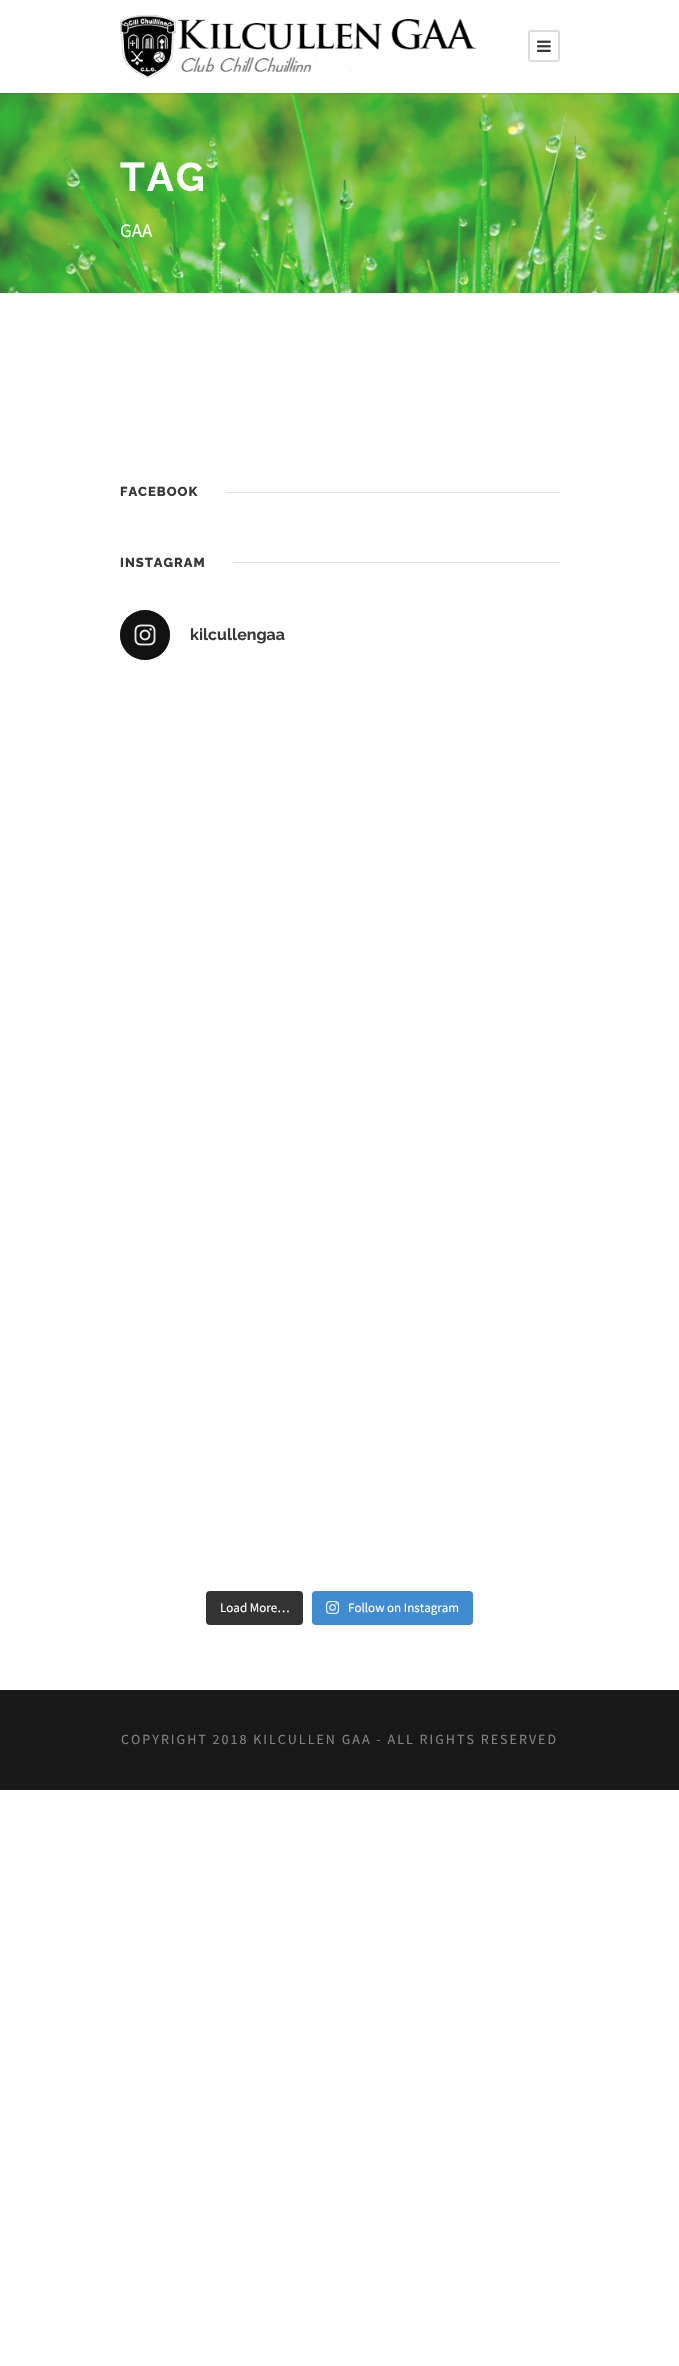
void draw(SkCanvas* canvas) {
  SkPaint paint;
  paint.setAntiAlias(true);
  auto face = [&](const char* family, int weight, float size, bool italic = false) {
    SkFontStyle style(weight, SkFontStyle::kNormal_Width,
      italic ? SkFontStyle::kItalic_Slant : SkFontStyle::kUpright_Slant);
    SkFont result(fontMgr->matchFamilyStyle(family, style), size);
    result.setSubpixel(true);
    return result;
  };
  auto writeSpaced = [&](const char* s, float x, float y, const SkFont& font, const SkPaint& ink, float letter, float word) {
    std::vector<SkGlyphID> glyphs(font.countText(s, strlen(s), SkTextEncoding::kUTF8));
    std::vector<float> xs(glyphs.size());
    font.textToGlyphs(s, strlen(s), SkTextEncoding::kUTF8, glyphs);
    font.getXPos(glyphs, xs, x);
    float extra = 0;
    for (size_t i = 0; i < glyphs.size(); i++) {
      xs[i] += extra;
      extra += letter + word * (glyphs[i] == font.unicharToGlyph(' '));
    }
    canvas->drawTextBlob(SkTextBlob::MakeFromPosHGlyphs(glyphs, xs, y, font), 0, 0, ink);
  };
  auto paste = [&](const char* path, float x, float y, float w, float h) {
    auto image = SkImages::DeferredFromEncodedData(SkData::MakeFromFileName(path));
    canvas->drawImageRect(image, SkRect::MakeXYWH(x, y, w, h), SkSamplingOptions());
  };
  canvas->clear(0xffffffff);
  paste("img/3.png", 0, 93, 679, 200);
  canvas->save();
  canvas->clipRect(SkRect::MakeXYWH(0, 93, 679, 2));
  paint.setColor(0x1a000000);
  paint.setMaskFilter(SkMaskFilter::MakeBlur(kNormal_SkBlurStyle, 1));
  canvas->drawRect(SkRect::MakeXYWH(0, 1, 679, 93), paint);
  paint.setMaskFilter(nullptr);
  canvas->restore();
  paste("img/1.png", 120, 15, 357, 63);
  paint.setStroke(true);
  paint.setStrokeWidth(2);
  paint.setColor(0xffdddddd);
  canvas->drawRoundRect(SkRect::MakeXYWH(529, 31, 30, 30), 2, 2, paint);
  paste("img/2.png", 537, 40, 14, 12);
  paint.setStroke(false);
  paint.setColor(0xffe2e2e2);
  canvas->drawRect(SkRect::MakeXYWH(226, 492, 334, 1), paint);
  canvas->drawRect(SkRect::MakeXYWH(233, 562, 327, 1), paint);
  paint.setColor(0xff333333);
  canvas->drawCircle(145, 635, 25, paint);
  paint.setColor(0xad000000);
  canvas->drawCircle(145, 635, 25, paint);
  paste("img/4.png", 134, 624, 22, 22);
  paint.setColor(0xff333333);
  canvas->drawRoundRect(SkRect::MakeXYWH(206, 1591, 97, 34), 4, 4, paint);
  paint.setColor(0xff408bd1);
  canvas->drawRoundRect(SkRect::MakeXYWH(312, 1591, 161, 34), 4, 4, paint);
  paste("img/5.png", 326, 1601, 13, 13);
  paint.setColor(0xff181818);
  canvas->drawRect(SkRect::MakeXYWH(0, 1690, 679, 100), paint);
  auto f0 = face("Raleway", 700, 40);
  paint.setColor(0xffffffff);
  writeSpaced("TAG", 120, 191, f0, paint, 2, 0);
  auto f1 = face("Source Sans Pro", 400, 19);
  canvas->drawString("GAA", 120, 237, f1, paint);
  auto f2 = face("Raleway", 800, 13);
  paint.setColor(0xff383838);
  writeSpaced("FACEBOOK", 120, 496, f2, paint, 1, 0);
  writeSpaced("INSTAGRAM", 120, 567, f2, paint, 1, 0);
  auto f3 = face("Raleway", 700, 16);
  canvas->drawString("kilcullengaa", 190, 640, f3, paint);
  auto f4 = face("Source Sans Pro", 400, 13);
  paint.setColor(0xffffffff);
  canvas->drawString("Load More…", 220, 1612, f4, paint);
  canvas->drawString("Follow on Instagram", 348, 1612, f4, paint);
  auto f5 = face("Source Sans Pro", 400, 14);
  paint.setColor(0xff838383);
  writeSpaced("COPYRIGHT 2018 KILCULLEN GAA - ALL RIGHTS RESERVED", 121, 1744, f5, paint, 2, 0);
}
